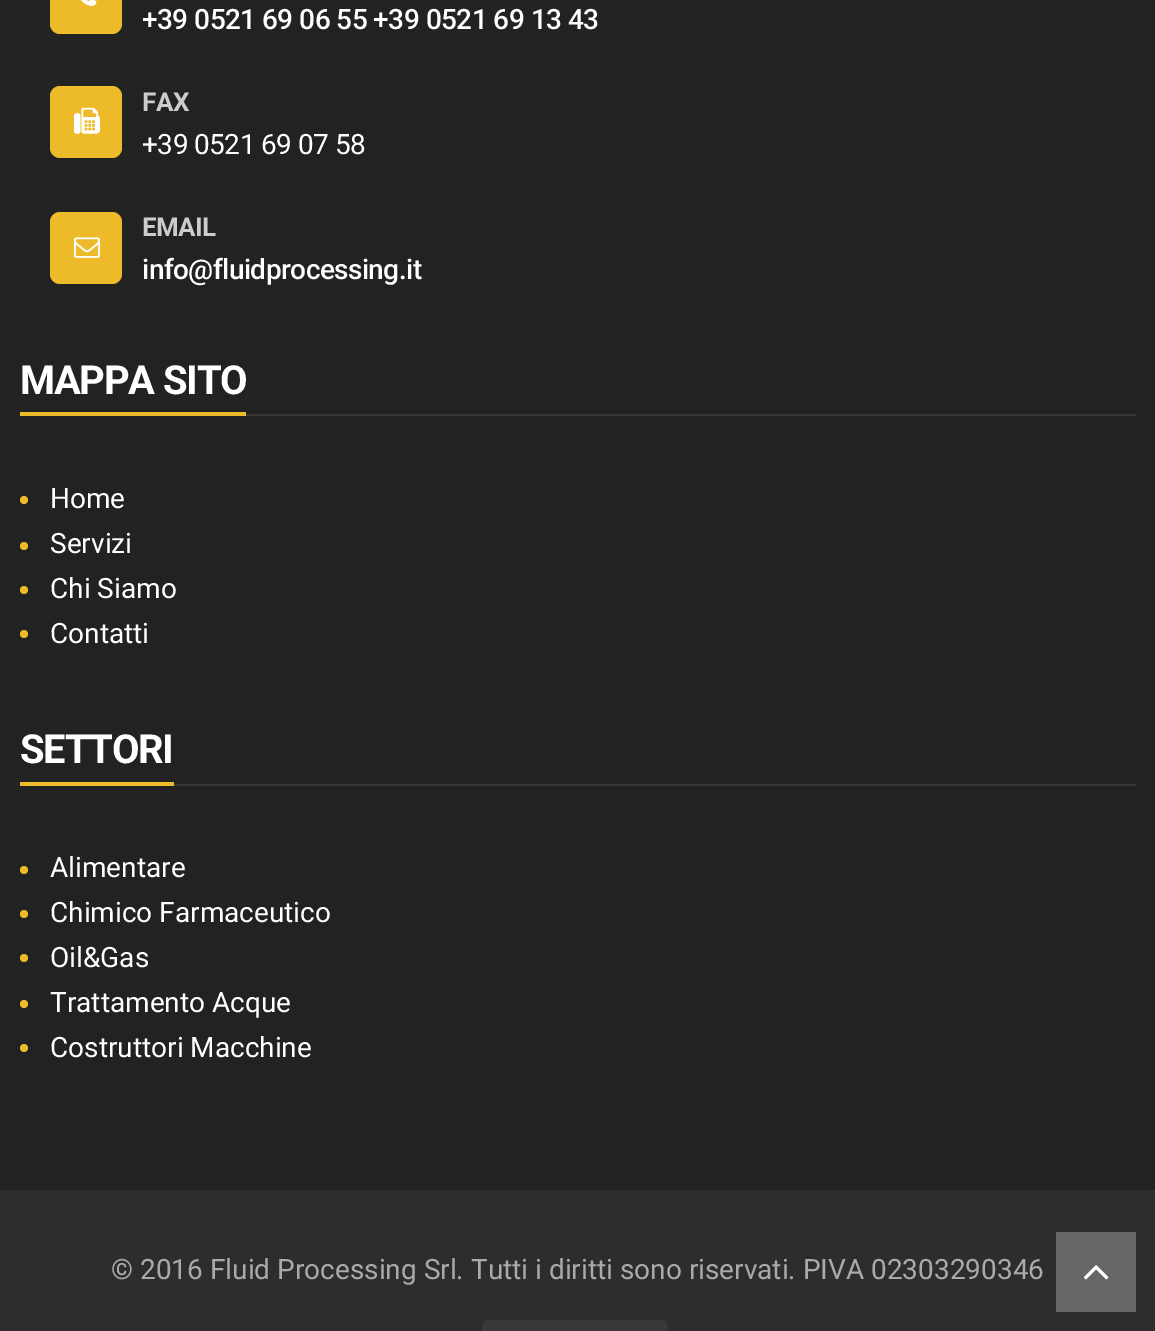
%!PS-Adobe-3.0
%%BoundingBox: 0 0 1155 1331
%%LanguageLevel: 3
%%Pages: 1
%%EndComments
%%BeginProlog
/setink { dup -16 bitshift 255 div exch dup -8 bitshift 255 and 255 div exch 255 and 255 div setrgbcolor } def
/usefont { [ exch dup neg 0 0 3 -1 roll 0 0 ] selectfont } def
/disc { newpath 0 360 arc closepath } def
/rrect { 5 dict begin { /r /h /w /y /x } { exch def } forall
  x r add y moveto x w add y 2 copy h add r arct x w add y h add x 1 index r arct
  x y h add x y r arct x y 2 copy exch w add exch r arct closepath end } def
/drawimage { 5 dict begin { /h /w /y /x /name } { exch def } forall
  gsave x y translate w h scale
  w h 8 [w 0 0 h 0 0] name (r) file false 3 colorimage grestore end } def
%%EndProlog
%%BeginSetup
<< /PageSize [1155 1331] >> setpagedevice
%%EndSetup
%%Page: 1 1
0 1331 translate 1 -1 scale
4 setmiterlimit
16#222222 setink
0 0 1155 1331 rectfill
16#EDBA29 setink
50 -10 72 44 10 rrect fill
(img1.raw) 80 0 17 6 drawimage
/Roboto-Medium 28 usefont
16#FFFFFF setink
142 29 moveto -0.55 0 (+39 0521 69 06 55 +39 0521 69 13 43) ashow
16#EDBA29 setink
50 86 72 72 10 rrect fill
(img2.raw) 74 107 26 27 drawimage
/Roboto-Bold 26 usefont
16#CCCCCC setink
142 111 moveto -0.5 0 (FAX) ashow
/Roboto-Regular 28 usefont
16#FFFFFF setink
142 154 moveto -0.55 0 (+39 0521 69 07 58) ashow
16#EDBA29 setink
50 212 72 72 10 rrect fill
(img3.raw) 74 237 26 21 drawimage
/Roboto-Bold 26 usefont
16#CCCCCC setink
142 236 moveto -0.5 0 (EMAIL) ashow
/Roboto-Medium 28 usefont
16#FFFFFF setink
142 279 moveto -0.55 0 (info@fluidprocessing.it) ashow
16#373737 setink
246 414 890 2 rectfill
/Roboto-Bold 40 usefont
16#FFFFFF setink
20 394 moveto -1.25 0 (MAPPA SITO) ashow
16#EDBA29 setink
20 412 226 4 rectfill
24 500 4 disc fill
/Roboto-Regular 28 usefont
16#FFFFFF setink
50 508 moveto (Home) show
16#EDBA29 setink
24 546 4 disc fill
16#FFFFFF setink
50 553 moveto (Servizi) show
16#EDBA29 setink
24 590 4 disc fill
16#FFFFFF setink
50 598 moveto (Chi Siamo) show
16#EDBA29 setink
24 634 4 disc fill
16#FFFFFF setink
50 643 moveto (Contatti) show
16#373737 setink
174 784 962 2 rectfill
/Roboto-Bold 40 usefont
16#FFFFFF setink
20 763 moveto -1.25 0 (SETTORI) ashow
16#EDBA29 setink
20 782 154 4 rectfill
24 870 4 disc fill
/Roboto-Regular 28 usefont
16#FFFFFF setink
50 877 moveto (Alimentare) show
16#EDBA29 setink
24 914 4 disc fill
16#FFFFFF setink
50 922 moveto (Chimico Farmaceutico) show
16#EDBA29 setink
24 958 4 disc fill
16#FFFFFF setink
50 967 moveto (Oil&Gas) show
16#EDBA29 setink
24 1004 4 disc fill
16#FFFFFF setink
50 1012 moveto (Trattamento Acque) show
16#EDBA29 setink
24 1048 4 disc fill
16#FFFFFF setink
50 1057 moveto (Costruttori Macchine) show
16#2D2D2D setink
0 1190 1155 141 rectfill
16#AAAAAA setink
111 1279 moveto (© 2016 Fluid Processing Srl. Tutti i diritti sono riservati. PIVA 02303290346) show
(img4.raw) 482 1320 186 11 drawimage
16#666666 setink
1056 1232 80 80 rectfill
(img5.raw) 1083 1265 26 15 drawimage
showpage
%%EOF
